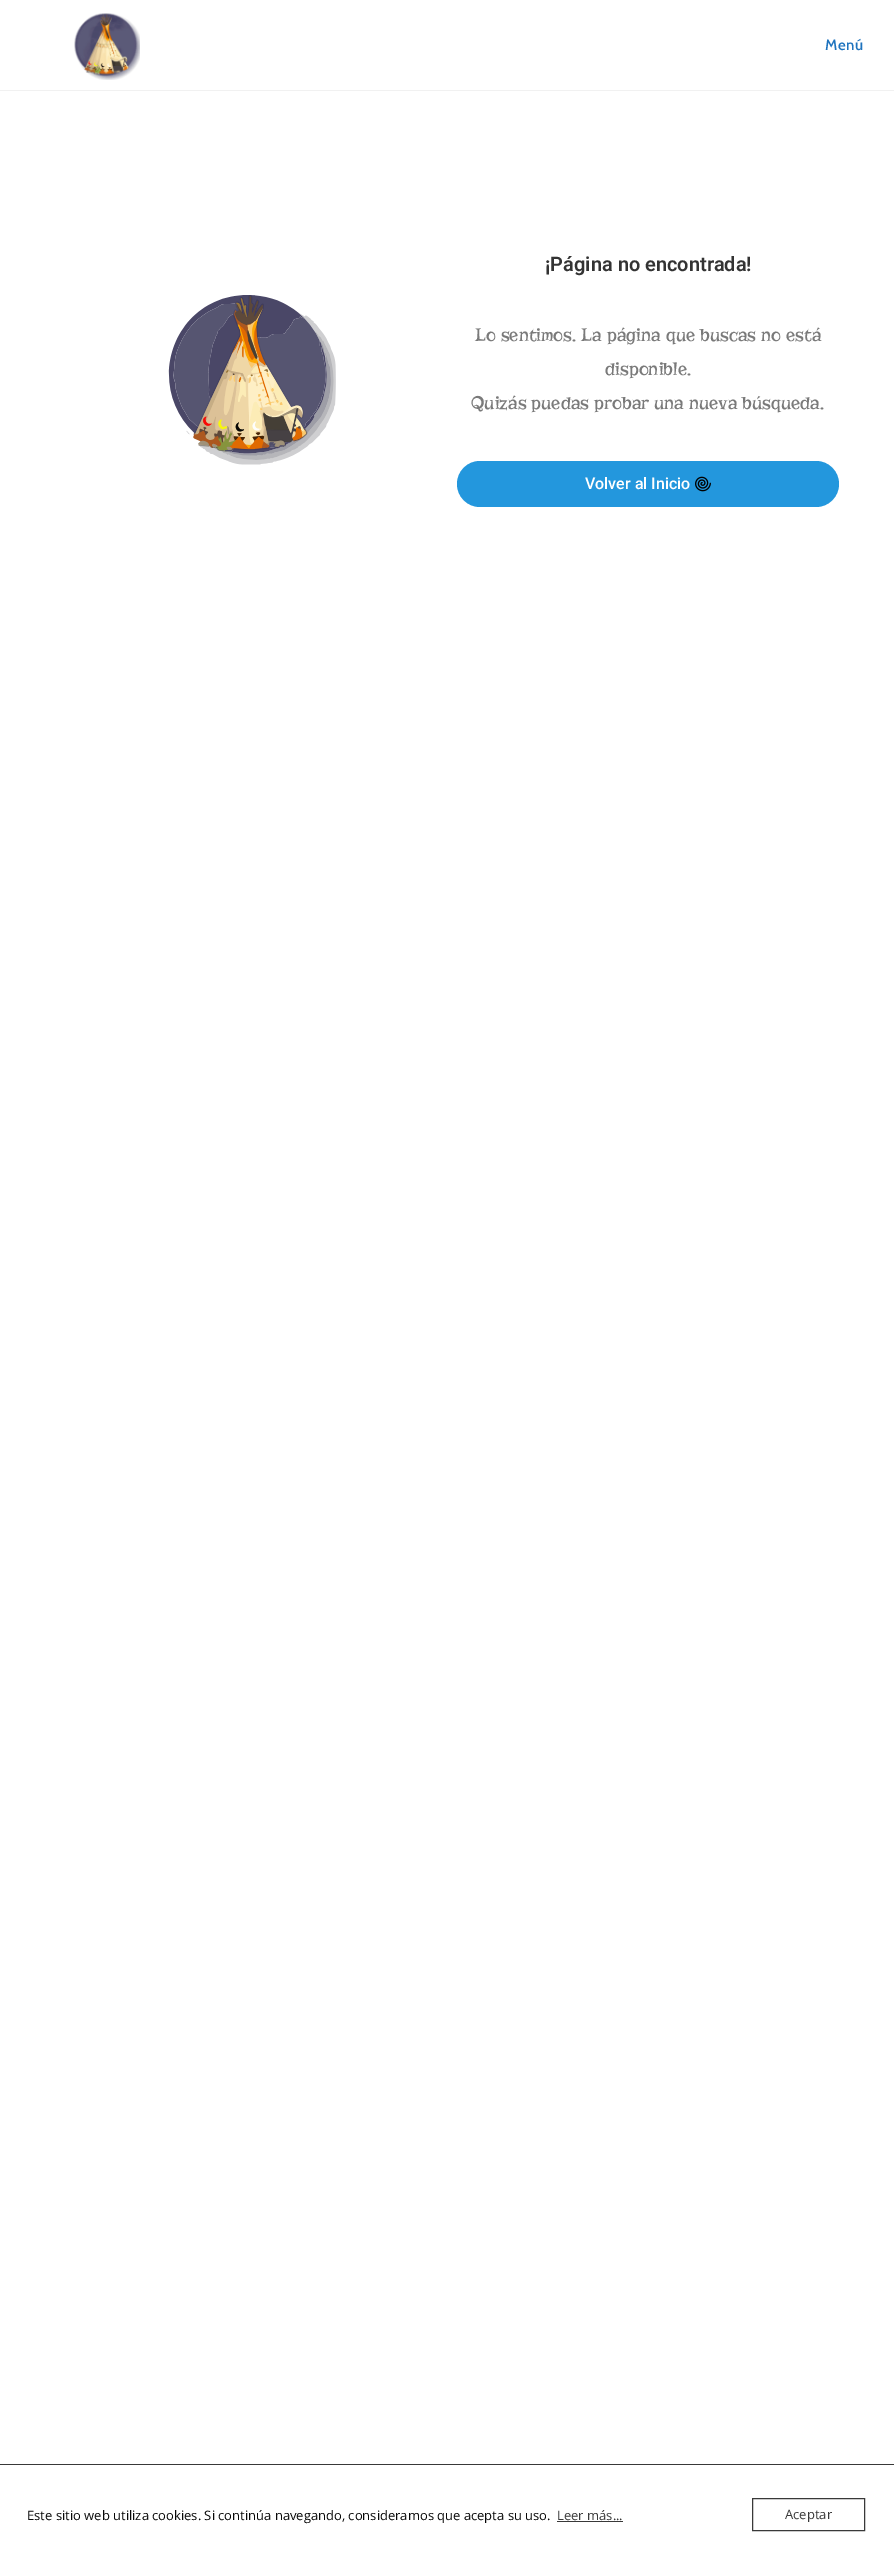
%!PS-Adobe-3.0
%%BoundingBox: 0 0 894 2564
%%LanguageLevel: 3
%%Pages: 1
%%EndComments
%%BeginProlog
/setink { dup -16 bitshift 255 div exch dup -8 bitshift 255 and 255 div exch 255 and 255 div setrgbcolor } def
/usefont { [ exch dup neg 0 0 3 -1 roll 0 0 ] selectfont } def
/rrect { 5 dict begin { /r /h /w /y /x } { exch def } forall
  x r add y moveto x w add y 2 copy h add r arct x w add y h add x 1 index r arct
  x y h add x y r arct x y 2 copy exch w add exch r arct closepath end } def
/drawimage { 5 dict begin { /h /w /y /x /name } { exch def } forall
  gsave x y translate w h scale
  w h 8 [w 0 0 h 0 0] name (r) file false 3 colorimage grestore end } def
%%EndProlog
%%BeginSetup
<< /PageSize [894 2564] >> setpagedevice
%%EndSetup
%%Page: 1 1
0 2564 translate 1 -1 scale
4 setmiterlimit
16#FFFFFF setink
0 0 894 2564 rectfill
16#F1F1F1 setink
0 90 894 1 rectfill
(img1.raw) 74 13 66 67 drawimage
/Cabin-Medium 15 usefont
16#1E73BE setink
825 50 moveto 0.5 0 (Menú) ashow
(img2.raw) 168 295 168 170 drawimage
/Roboto-SemiBold 20 usefont
16#333333 setink
545 271 moveto (¡Página no encontrada!) show
/Risque-Regular 19 usefont
16#7A7A7A setink
[
    [(Lo sentimos. La página que buscas no está) 475 341]
    [(disponible.) 605 375]
    [(Quizás puedas probar una nueva búsqueda.) 471 409]
] { aload pop moveto show } forall
16#2397DD setink
457 461 382 46 23 rrect fill
/Roboto-Medium 16 usefont
16#FFFFFF setink
585 489 moveto (Volver al Inicio) show
(img3.raw) 695 476 16 16 drawimage
16#393939 setink
0 2464 894 1 rectfill
/OpenSans-Regular 13 usefont
16#080808 setink
27 2520 moveto (Este sitio web utiliza cookies. Si continúa navegando, consideramos que acepta su uso.) show
16#393939 setink
557 2520 moveto (Leer más...) show
557 2521 66 1 rectfill
752.5 2498.5 112 32 rectstroke
785 2519 moveto (Aceptar) show
showpage
%%EOF
